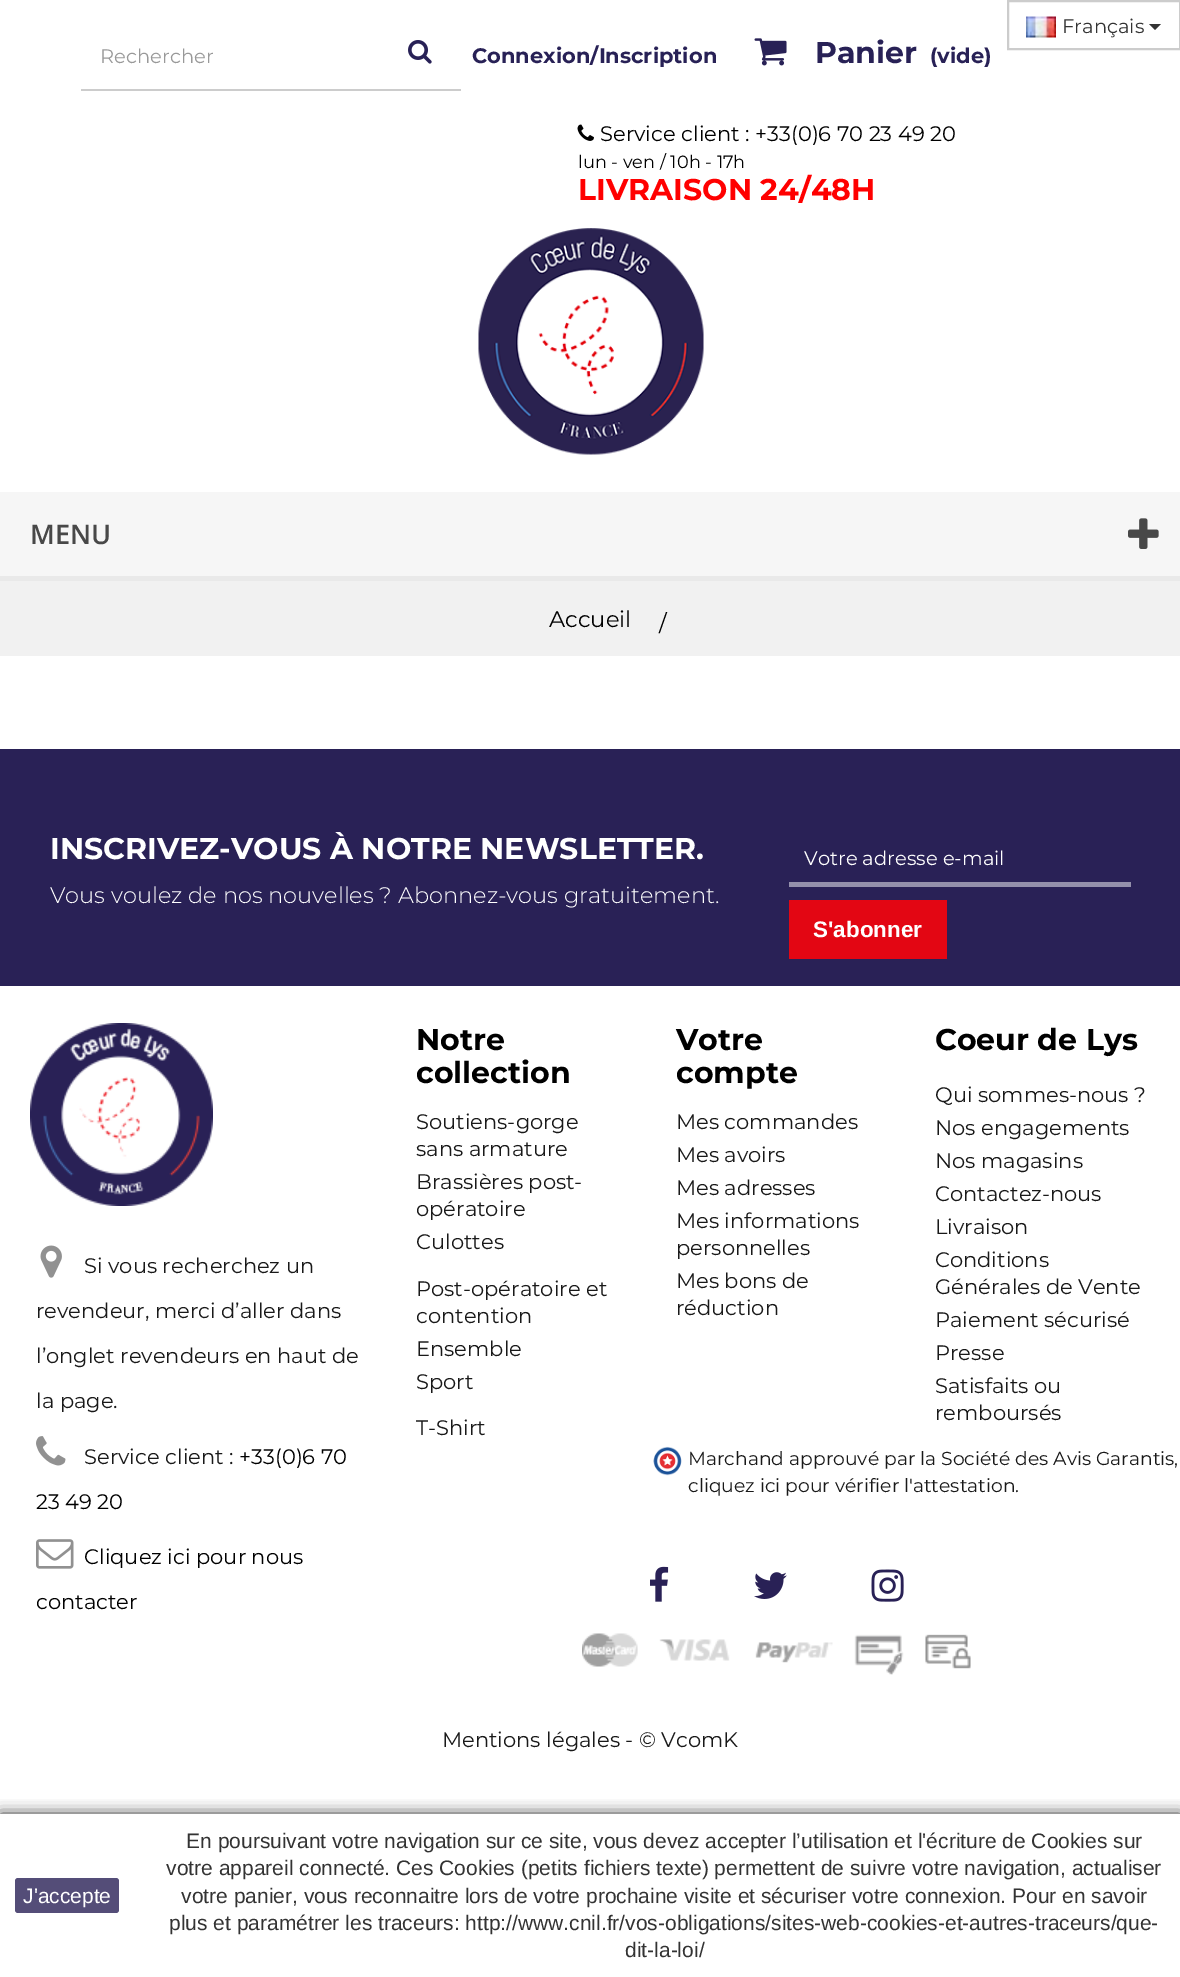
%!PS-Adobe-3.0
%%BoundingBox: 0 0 1180 1977
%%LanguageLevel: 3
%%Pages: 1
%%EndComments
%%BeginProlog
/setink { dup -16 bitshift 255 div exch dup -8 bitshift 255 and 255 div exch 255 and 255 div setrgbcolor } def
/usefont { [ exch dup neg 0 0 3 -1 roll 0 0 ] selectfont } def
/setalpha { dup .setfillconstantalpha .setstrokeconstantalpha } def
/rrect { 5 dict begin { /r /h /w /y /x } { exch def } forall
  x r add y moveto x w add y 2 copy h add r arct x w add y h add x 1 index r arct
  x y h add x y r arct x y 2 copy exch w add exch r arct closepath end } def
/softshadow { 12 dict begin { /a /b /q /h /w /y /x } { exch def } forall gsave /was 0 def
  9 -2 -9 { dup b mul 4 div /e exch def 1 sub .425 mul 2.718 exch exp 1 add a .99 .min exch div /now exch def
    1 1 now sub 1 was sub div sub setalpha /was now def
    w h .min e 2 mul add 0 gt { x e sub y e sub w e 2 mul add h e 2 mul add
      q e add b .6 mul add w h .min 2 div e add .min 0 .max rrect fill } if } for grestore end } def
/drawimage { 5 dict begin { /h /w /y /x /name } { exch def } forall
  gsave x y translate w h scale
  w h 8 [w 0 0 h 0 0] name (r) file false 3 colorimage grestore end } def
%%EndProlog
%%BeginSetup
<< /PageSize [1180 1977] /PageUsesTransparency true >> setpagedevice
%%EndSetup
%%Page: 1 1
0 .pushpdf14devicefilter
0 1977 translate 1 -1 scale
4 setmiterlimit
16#FFFFFF setink
0 0 1180 1977 rectfill
16#CCCCCC setink
2 setlinewidth
1008 1 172 48 rectstroke
(img1.raw) 1026 16 30 22 drawimage
/Montserrat-Regular 19.5 usefont
16#333333 setink
1062 33 moveto (Français) show
1149 24 moveto 1161 24 lineto 1155 30 lineto closepath fill
16#CCCCCC setink
81 89 380 2 rectfill
16#999999 setink
100 63 moveto (Rechercher) show
(img2.raw) 408 40 24 24 drawimage
/Montserrat-Bold 21 usefont
16#282156 setink
472 63 moveto (Connexion/Inscription) show
(img3.raw) 754 38 33 28 drawimage
/Montserrat-Bold 30 usefont
815 63 moveto (Panier) show
/Montserrat-Bold 21 usefont
930 63 moveto (\(vide\)) show
(img4.raw) 577 124 17 17 drawimage
/Montserrat-Regular 21 usefont
16#000000 setink
600 141 moveto (Service client : +33\(0\)6 70 23 49 20) show
/Montserrat-Regular 17.75 usefont
578 168 moveto (lun - ven / 10h - 17h) show
/Montserrat-Bold 30 usefont
16#FF0000 setink
578 200 moveto (LIVRAISON 24/48H) show
(img5.raw) 478 228 226 227 drawimage
16#F6F6F6 setink
0 492 1180 84 rectfill
16#E9E9E9 setink
0 576 1180 5 rectfill
/OpenSans-SemiBold 27 usefont
16#484848 setink
30 544 moveto (MENU) show
(img6.raw) 1128 518 31 31 drawimage
16#F1F1F1 setink
0 581 1180 75 rectfill
/Montserrat-Regular 22.5 usefont
16#000000 setink
549 627 moveto (Accueil) show
659 631 moveto (/) show
16#292156 setink
0 749 1180 237 rectfill
/Montserrat-Bold 30 usefont
16#FFFFFF setink
50 859 moveto (INSCRIVEZ-VOUS À NOTRE NEWSLETTER.) show
/Montserrat-Light 22.5 usefont
50 903 moveto (Vous voulez de nos nouvelles ? Abonnez-vous gratuitement.) show
16#9490AB setink
789 882 342 5 rectfill
/Montserrat-Regular 19.5 usefont
16#FFFFFF setink
804 865 moveto (Votre adresse e-mail) show
16#E30613 setink
789 900 158 59 rectfill
/LiberationSans-Bold 22.5 usefont
16#FFFFFF setink
813 937 moveto (S'abonner) show
/Montserrat-Bold 30 usefont
16#000000 setink
416 1050 moveto (Notre) show
416 1083 moveto (collection) show
/Montserrat-Regular 21 usefont
16#191919 setink
[
    [(Soutiens-gorge) 416 1129]
    [(sans armature) 416 1156]
    [(Brassières post-) 416 1189]
    [(opératoire) 416 1216]
    [(Culottes) 416 1249]
    [(Post-opératoire et) 416 1296]
    [(contention) 416 1323]
    [(Ensemble) 416 1356]
    [(Sport) 416 1389]
    [(T-Shirt) 416 1435]
] { aload pop moveto show } forall
/Montserrat-Bold 30 usefont
16#000000 setink
676 1050 moveto (Votre) show
676 1083 moveto (compte) show
/Montserrat-Regular 21 usefont
16#191919 setink
[
    [(Mes commandes) 676 1129]
    [(Mes avoirs) 676 1162]
    [(Mes adresses) 676 1195]
    [(Mes informations) 676 1228]
    [(personnelles) 676 1255]
    [(Mes bons de) 676 1288]
    [(réduction) 676 1315]
] { aload pop moveto show } forall
/Montserrat-Bold 30 usefont
16#000000 setink
935 1050 moveto (Coeur de Lys) show
/Montserrat-Regular 21 usefont
16#191919 setink
[
    [(Qui sommes-nous ?) 935 1102]
    [(Nos engagements) 935 1135]
    [(Nos magasins) 935 1168]
    [(Contactez-nous) 935 1201]
    [(Livraison) 935 1234]
    [(Conditions) 935 1267]
    [(Générales de Vente) 935 1294]
    [(Paiement sécurisé) 935 1327]
    [(Presse) 935 1360]
    [(Satisfaits ou) 935 1393]
    [(remboursés) 935 1420]
] { aload pop moveto show } forall
(img7.raw) 30 1023 183 183 drawimage
(img8.raw) 40 1245 22 33 drawimage
[
    [(Si vous recherchez un) 84 1273]
    [(revendeur, merci d’aller dans) 36 1318]
    [(l’onglet revendeurs en haut de) 36 1363]
    [(la page.) 36 1408]
] { aload pop moveto show } forall
(img9.raw) 36 1436 30 30 drawimage
84 1464 moveto (Service client :) show
16#000000 setink
239 1464 moveto (+33\(0\)6 70) show
36 1509 moveto (23 49 20) show
(img10.raw) 36 1539 38 30 drawimage
84 1564 moveto (Cliquez ici pour nous) show
36 1609 moveto (contacter) show
(img11.raw) 653 1446 29 30 drawimage
/Montserrat-Regular 18.75 usefont
16#191919 setink
688 1465 moveto (Marchand approuvé par la Société des Avis Garantis,) show
688 1492 moveto (cliquez ici pour vérifier l'attestation.) show
(img12.raw) 650 1566 19 36 drawimage
(img13.raw) 754 1572 33 27 drawimage
(img14.raw) 871 1569 33 33 drawimage
(img15.raw) 582 1633 389 42 drawimage
/Montserrat-Regular 21 usefont
442 1747 moveto (Mentions légales - © VcomK) show
gsave
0 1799 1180 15 rectclip
16#333333 setink
0 1814 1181 163 0 7.5 1 softshadow
grestore
16#544D78 setink
15 1878 104 35 3 rrect fill
/LiberationSans-Regular 21 usefont
16#FFFFFF setink
23 1903 moveto (J'accepte) show
16#333333 setink
[
    [(En poursuivant votre navigation sur ce site, vous devez accepter l’utilisation et l'écriture de Cookies sur) 186 1848]
    [(votre appareil connecté. Ces Cookies \(petits fichiers texte\) permettent de suivre votre navigation, actualiser) 166 1875]
    [(votre panier, vous reconnaitre lors de votre prochaine visite et sécuriser votre connexion. Pour en savoir) 181 1903]
    [(plus et paramétrer les traceurs: http://www.cnil.fr/vos-obligations/sites-web-cookies-et-autres-traceurs/que-) 169 1930]
    [(dit-la-loi/) 625 1957]
] { aload pop moveto show } forall
.poppdf14devicefilter showpage
%%EOF
